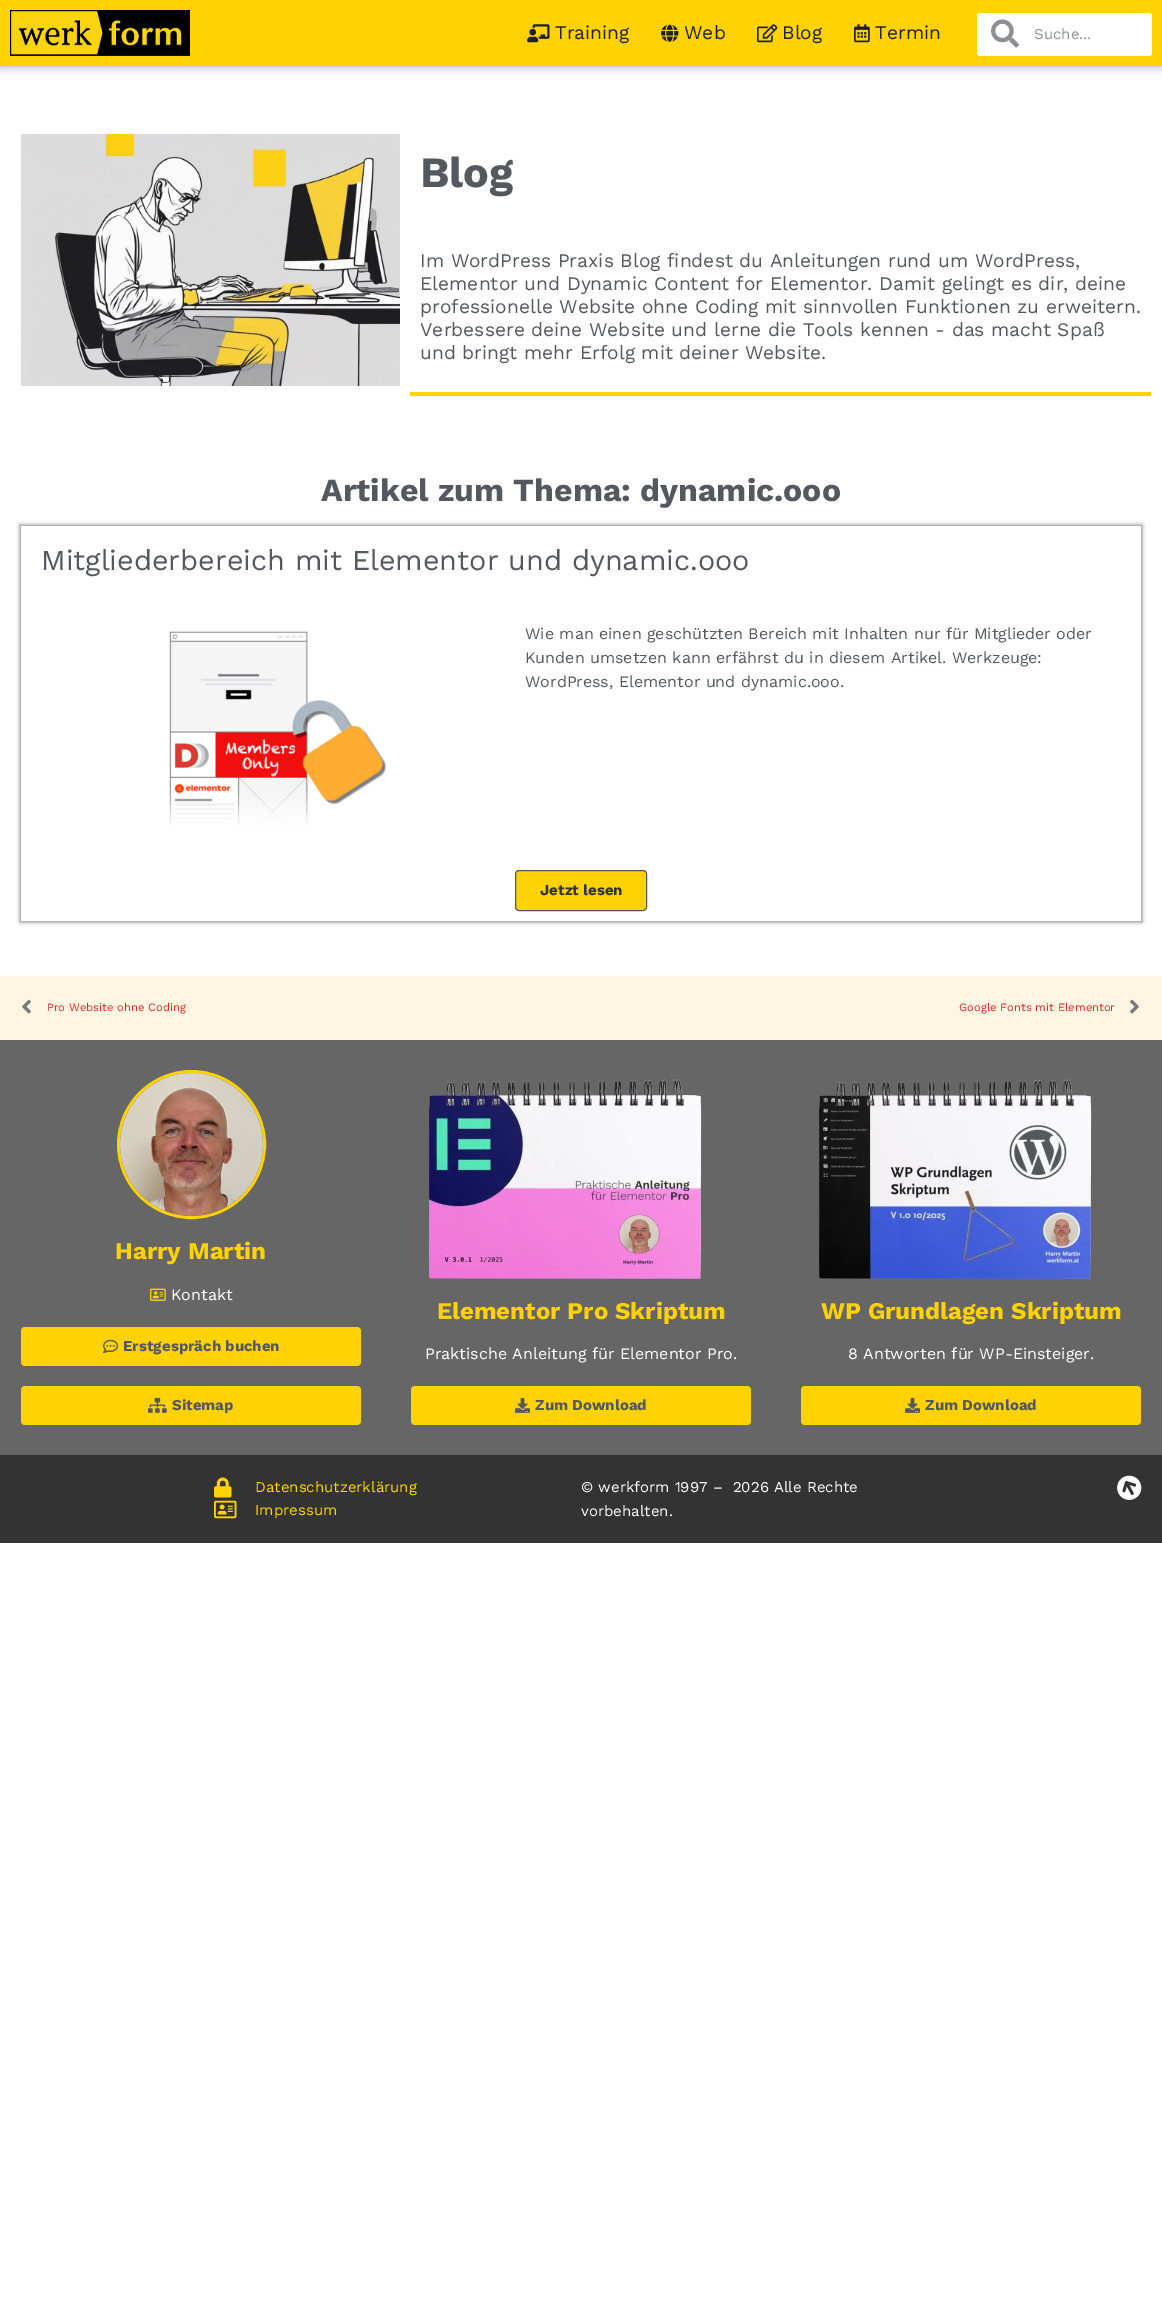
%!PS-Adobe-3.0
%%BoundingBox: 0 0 1162 2311
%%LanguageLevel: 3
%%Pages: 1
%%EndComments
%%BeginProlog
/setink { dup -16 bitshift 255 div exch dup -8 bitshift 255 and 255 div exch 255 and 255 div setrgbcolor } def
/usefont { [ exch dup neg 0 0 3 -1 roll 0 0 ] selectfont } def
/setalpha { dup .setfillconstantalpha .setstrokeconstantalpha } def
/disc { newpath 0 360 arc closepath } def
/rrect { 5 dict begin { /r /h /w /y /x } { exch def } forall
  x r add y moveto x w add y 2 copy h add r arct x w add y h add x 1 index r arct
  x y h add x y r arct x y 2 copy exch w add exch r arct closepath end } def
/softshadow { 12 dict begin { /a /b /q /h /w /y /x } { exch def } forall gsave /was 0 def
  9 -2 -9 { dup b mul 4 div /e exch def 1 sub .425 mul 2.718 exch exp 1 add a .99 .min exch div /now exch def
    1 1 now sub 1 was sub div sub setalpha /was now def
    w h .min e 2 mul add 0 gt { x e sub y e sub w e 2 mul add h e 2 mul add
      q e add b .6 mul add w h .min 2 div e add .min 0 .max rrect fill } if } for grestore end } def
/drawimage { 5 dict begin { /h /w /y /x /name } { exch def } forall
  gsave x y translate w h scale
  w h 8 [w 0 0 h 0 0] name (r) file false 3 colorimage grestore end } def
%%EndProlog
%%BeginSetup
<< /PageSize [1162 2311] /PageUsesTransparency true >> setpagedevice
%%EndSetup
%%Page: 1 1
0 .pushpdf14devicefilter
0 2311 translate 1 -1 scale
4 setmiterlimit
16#FFFFFF setink
0 0 1162 2311 rectfill
16#000000 setink
0 0 1162 66 0 5 0.37 softshadow
16#FFD203 setink
0 0 1162 66 rectfill
(img1.raw) 10 10 180 46 drawimage
(img2.raw) 527 24 23 19 drawimage
/WorkSans-Regular 19.2 usefont
16#1F2124 setink
555 39 moveto (Training) show
(img3.raw) 661 24 18 18 drawimage
684 39 moveto (Web) show
(img4.raw) 757 24 21 19 drawimage
782 39 moveto (Blog) show
(img5.raw) 854 24 16 19 drawimage
875 39 moveto (Termin) show
16#FFFFFF setink
977 13 175 43 3 rrect fill
(img6.raw) 991 19 28 29 drawimage
/WorkSans-Regular 15 usefont
16#8C8F93 setink
1034 39 moveto (Suche...) show
(img7.raw) 21 134 379 252 drawimage
16#FFD203 setink
410 392 741 4 rectfill
/WorkSans-Bold 43 usefont
16#54595F setink
420 187 moveto (Blog) show
/WorkSans-Regular 19.2 usefont
[
    [(Im WordPress Praxis Blog findest du Anleitungen rund um WordPress,) 420 267]
    [(Elementor und Dynamic Content for Elementor. Damit gelingt es dir, deine) 420 290]
    [(professionelle Website ohne Coding mit sinnvollen Funktionen zu erweitern.) 420 313]
    [(Verbessere deine Website und lerne die Tools kennen - das macht Spaß) 420 336]
    [(und bringt mehr Erfolg mit deiner Website.) 420 359]
] { aload pop moveto show } forall
/WorkSans-Bold 32 usefont
321 501 moveto (Artikel zum Thema: dynamic.ooo) show
gsave
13 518 moveto 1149 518 lineto 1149 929 lineto 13 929 lineto closepath 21 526 moveto 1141 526 lineto 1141 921 lineto 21 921 lineto closepath eoclip newpath
16#000000 setink
20 525 1122 397 0 2 0.5 softshadow
grestore
/WorkSans-Regular 28.8 usefont
41 570 moveto (Mitgliederbereich mit Elementor und dynamic.ooo) show
(img8.raw) 169 631 218 195 drawimage
/WorkSans-Regular 16 usefont
[
    [(Wie man einen geschützten Bereich mit Inhalten nur für Mitglieder oder) 525 639]
    [(Kunden umsetzen kann erfährst du in diesem Artikel. Werkzeuge:) 525 663]
    [(WordPress, Elementor und dynamic.ooo.) 525 687]
] { aload pop moveto show } forall
16#FFD203 setink
515.5 870.5 131 40 3.5 rrect gsave fill grestore
16#54595F setink
stroke
/WorkSans-Bold 15 usefont
16#333333 setink
540 895 moveto (Jetzt lesen) show
16#FFF5E2 setink
0 976 1162 64 rectfill
(img9.raw) 22 999 9 15 drawimage
/WorkSans-Regular 11.25 usefont
16#D32A2A setink
47 1011 moveto (Pro Website ohne Coding) show
959 1011 moveto (Google Fonts mit Elementor) show
(img10.raw) 1130 999 9 15 drawimage
16#666666 setink
0 1040 1162 415 rectfill
16#FFD203 setink
3 setlinewidth
191.5 1144.5 73 disc stroke
(img11.raw) 120 1073 143 143 drawimage
/WorkSans-Bold 24 usefont
115 1259 moveto (Harry Martin) show
(img12.raw) 150 1288 16 13 drawimage
/WorkSans-Regular 16 usefont
16#FFFFFF setink
171 1300 moveto (Kontakt) show
16#FFD203 setink
21 1327 340 39 4 rrect fill
(img13.raw) 103 1339 15 14 drawimage
/WorkSans-Bold 15 usefont
16#54595F setink
123 1351 moveto (Erstgespräch buchen) show
16#FFD203 setink
21 1386 340 39 4 rrect fill
(img14.raw) 148 1397 19 16 drawimage
16#54595F setink
172 1410 moveto (Sitemap) show
(img15.raw) 428 1079 274 200 drawimage
/WorkSans-Bold 24 usefont
16#FFD203 setink
437 1319 moveto (Elementor Pro Skriptum) show
/WorkSans-Regular 16 usefont
16#FFFFFF setink
425 1359 moveto (Praktische Anleitung für Elementor Pro.) show
16#FFD203 setink
411 1386 340 39 4 rrect fill
(img16.raw) 515 1397 15 16 drawimage
/WorkSans-Bold 15 usefont
16#54595F setink
535 1410 moveto (Zum Download) show
(img17.raw) 819 1079 273 200 drawimage
/WorkSans-Bold 24 usefont
16#FFD203 setink
821 1319 moveto (WP Grundlagen Skriptum) show
/WorkSans-Regular 16 usefont
16#FFFFFF setink
848 1359 moveto (8 Antworten für WP-Einsteiger.) show
16#FFD203 setink
801 1386 340 39 4 rrect fill
(img16.raw) 905 1397 15 16 drawimage
/WorkSans-Bold 15 usefont
16#54595F setink
925 1410 moveto (Zum Download) show
16#333333 setink
0 1455 1162 88 rectfill
(img18.raw) 214 1477 18 21 drawimage
/WorkSans-Regular 15 usefont
16#FFD203 setink
255 1492 moveto (Datenschutzerklärung) show
(img19.raw) 214 1500 23 19 drawimage
255 1515 moveto (Impressum) show
16#FFFFFF setink
581 1492 moveto (© werkform 1997 –  2026 Alle Rechte) show
581 1516 moveto (vorbehalten.) show
(img20.raw) 1117 1475 25 25 drawimage
.poppdf14devicefilter showpage
%%EOF
